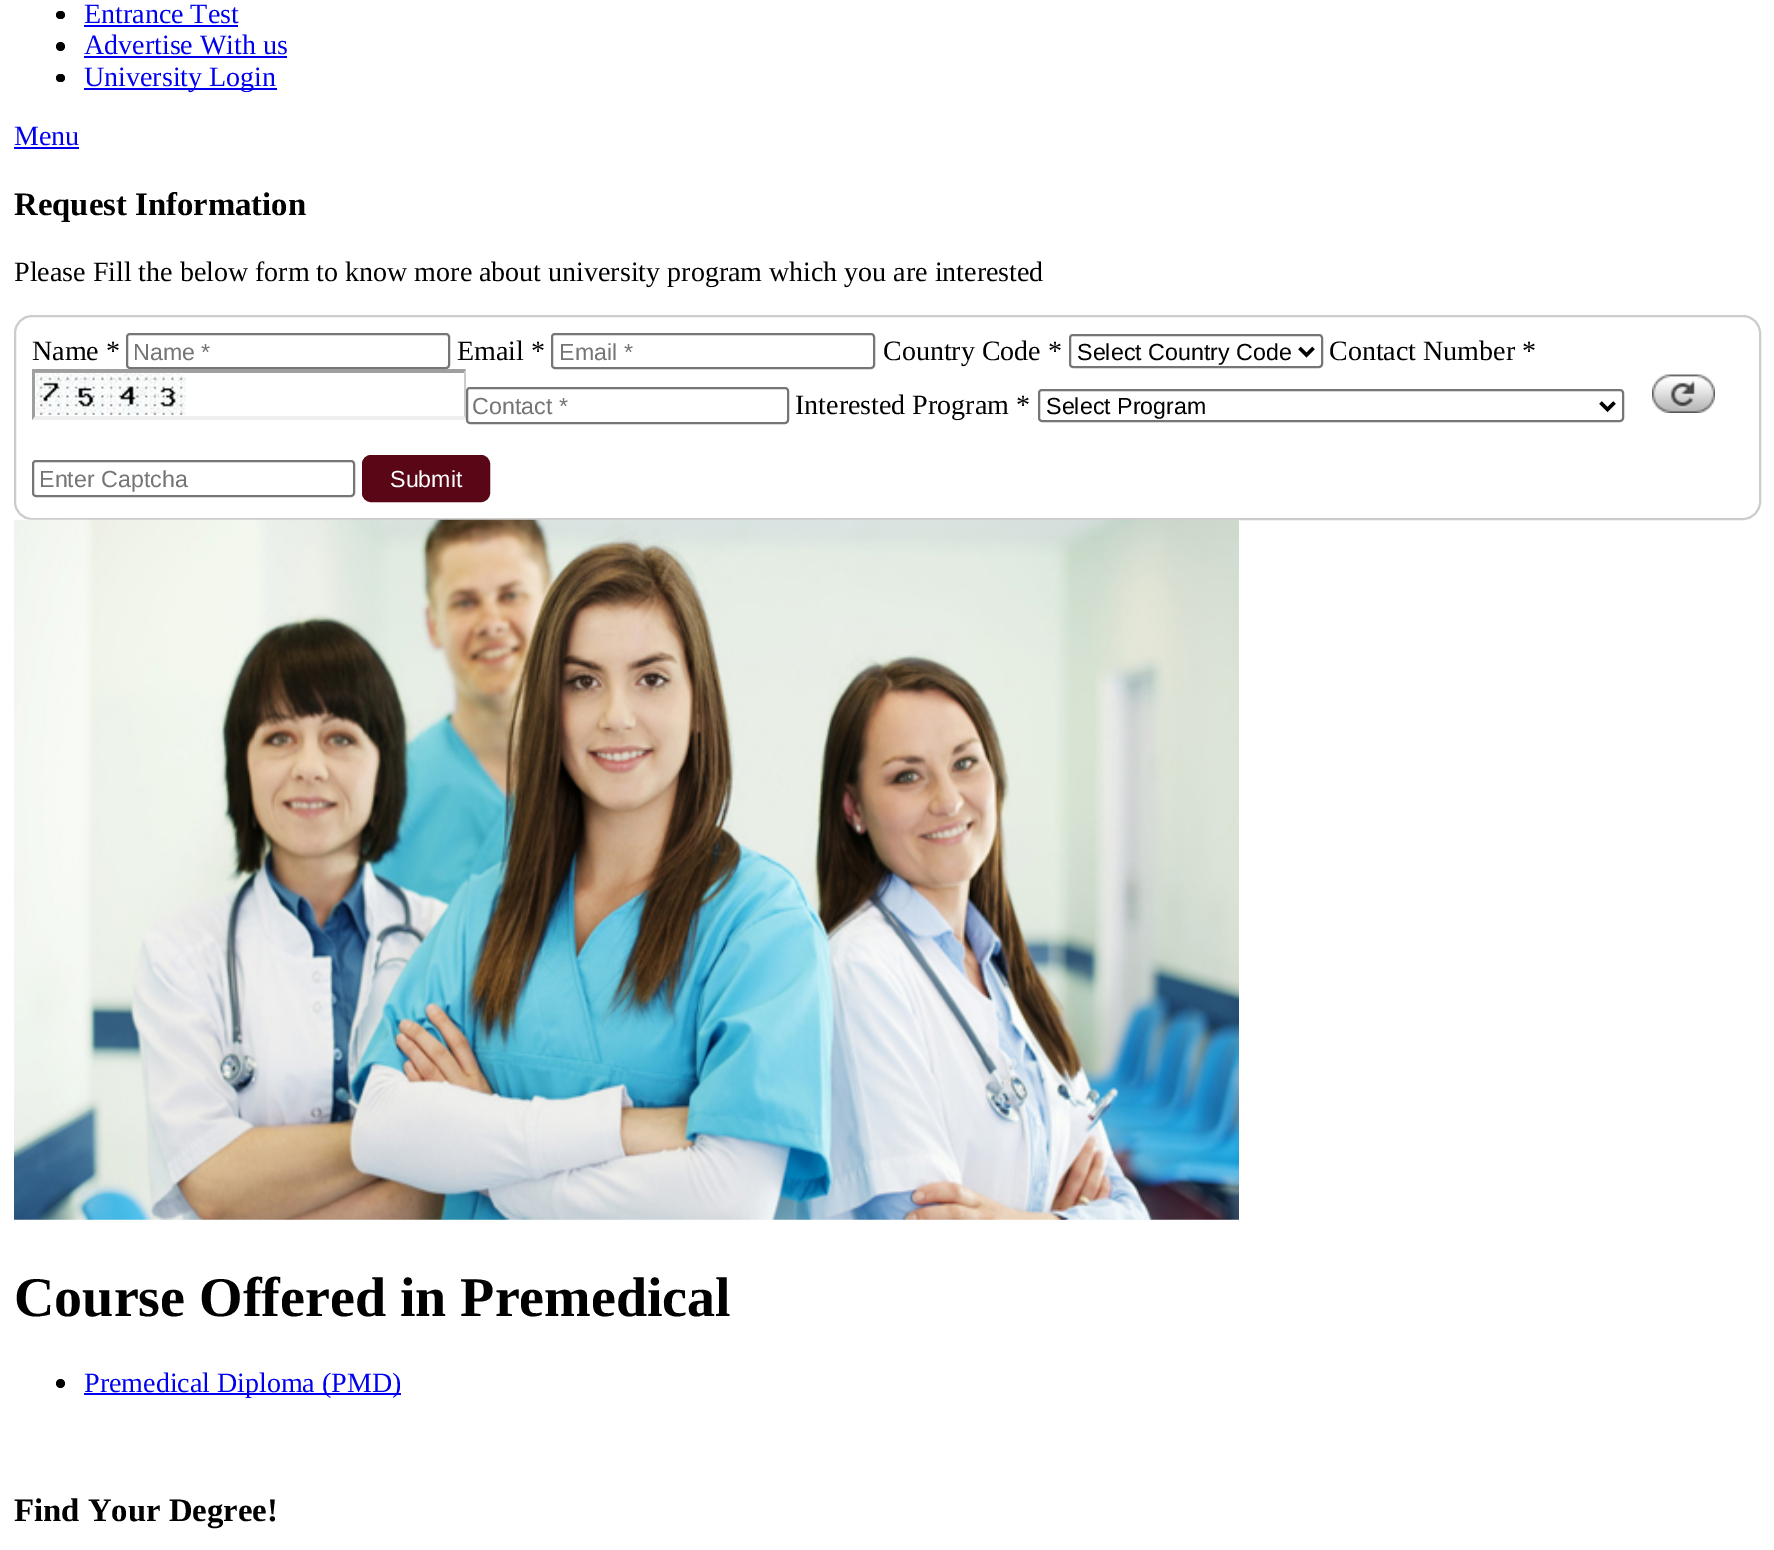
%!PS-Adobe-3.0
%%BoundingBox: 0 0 1774 1550
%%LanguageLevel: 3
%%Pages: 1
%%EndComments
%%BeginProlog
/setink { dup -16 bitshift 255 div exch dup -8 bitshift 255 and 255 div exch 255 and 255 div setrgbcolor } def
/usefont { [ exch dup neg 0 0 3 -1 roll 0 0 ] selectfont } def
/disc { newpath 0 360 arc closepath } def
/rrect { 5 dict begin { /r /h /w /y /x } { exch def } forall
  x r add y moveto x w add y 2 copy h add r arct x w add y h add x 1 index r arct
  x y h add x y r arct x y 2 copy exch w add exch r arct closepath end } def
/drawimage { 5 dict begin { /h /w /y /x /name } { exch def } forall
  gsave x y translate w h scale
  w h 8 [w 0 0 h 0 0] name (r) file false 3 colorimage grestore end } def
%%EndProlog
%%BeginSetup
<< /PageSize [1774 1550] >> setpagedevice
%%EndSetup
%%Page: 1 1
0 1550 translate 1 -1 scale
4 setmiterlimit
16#FFFFFF setink
0 0 1774 1550 rectfill
16#000000 setink
56 11 9 8 4 rrect fill
/LiberationSerif-Regular 28 usefont
16#0000EE setink
84 23 moveto (Entrance Test) show
84 25 154 2 rectfill
16#000000 setink
60.5 46.5 4.5 disc fill
16#0000EE setink
84 54 moveto (Advertise With us) show
84 56 203 2 rectfill
16#000000 setink
56 74 9 8 4 rrect fill
16#0000EE setink
84 88 193 2 rectfill
84 86 moveto (University Login) show
14 145 moveto (Menu) show
14 147 65 2 rectfill
/LiberationSerif-Bold 32.75 usefont
16#000000 setink
14 215 moveto (Request Information) show
/LiberationSerif-Regular 28 usefont
14 281 moveto (Please Fill the below form to know more about university program which you are interested) show
16#CCCCCC setink
2 setlinewidth
15 316 1745 203 17 rrect stroke
16#000000 setink
32 360 moveto (Name *) show
16#767676 setink
127 334 322 34 3 rrect stroke
/LiberationSans-Regular 23.25 usefont
16#757575 setink
133 360 moveto (Name *) show
/LiberationSerif-Regular 28 usefont
16#000000 setink
457 360 moveto (Email *) show
16#767676 setink
552 334 322 34 3 rrect stroke
/LiberationSans-Regular 23.25 usefont
16#757575 setink
559 360 moveto (Email *) show
/LiberationSerif-Regular 28 usefont
16#000000 setink
883 360 moveto (Country Code *) show
16#767676 setink
1070 335 252 32 3 rrect stroke
16#000000 setink
3.5 setlinewidth
1299.5 348 moveto 1306.5 355 lineto 1313.5 348 lineto stroke
/LiberationSans-Regular 23.25 usefont
1077 360 moveto (Select Country Code) show
/LiberationSerif-Regular 28 usefont
1329 360 moveto (Contact Number *) show
16#9F9F9F setink
32 369 moveto 466 369 lineto 464 373 lineto 35 373 lineto closepath fill
16#CCCCCC setink
466 369 moveto 466 420 lineto 464 416 lineto 464 373 lineto closepath fill
16#EEEEEE setink
466 420 moveto 32 420 lineto 35 416 lineto 464 416 lineto closepath fill
16#9F9F9F setink
32 420 moveto 32 369 lineto 35 373 lineto 35 416 lineto closepath fill
(img1.raw) 35 372 151 43 drawimage
16#767676 setink
2 setlinewidth
467 388 321 35 3 rrect stroke
gsave
473 392 309 26 rectclip
/LiberationSans-Regular 23.25 usefont
16#757575 setink
472 414 moveto (Contact *) show
grestore
16#000000 setink
795 414 moveto (Interested Program *) show
16#767676 setink
1039 390 584 31 3 rrect stroke
16#000000 setink
3.5 setlinewidth
1600.5 402.5 moveto 1607.5 409.5 lineto 1614.5 402.5 lineto stroke
/LiberationSans-Regular 23.25 usefont
1046 414 moveto (Select Program) show
(img2.raw) 1652 374 63 39 drawimage
16#767676 setink
2 setlinewidth
33 461 321 35 3 rrect stroke
16#757575 setink
39 487 moveto (Enter Captcha) show
16#590716 setink
363 456 126 45 8 rrect gsave fill grestore
stroke
16#FFFFFF setink
390 487 moveto (Submit) show
(img3.raw) 14 519 1225 701 drawimage
/LiberationSerif-Bold 56 usefont
16#000000 setink
14 1316 moveto (Course Offered in Premedical) show
60.5 1383.5 4.5 disc fill
16#0000EE setink
84 1393 317 2 rectfill
/LiberationSerif-Regular 28 usefont
84 1392 moveto (Premedical Diploma \(PMD\)) show
/LiberationSerif-Bold 32.75 usefont
16#000000 setink
14 1521 moveto (Find Your Degree!) show
showpage
%%EOF
